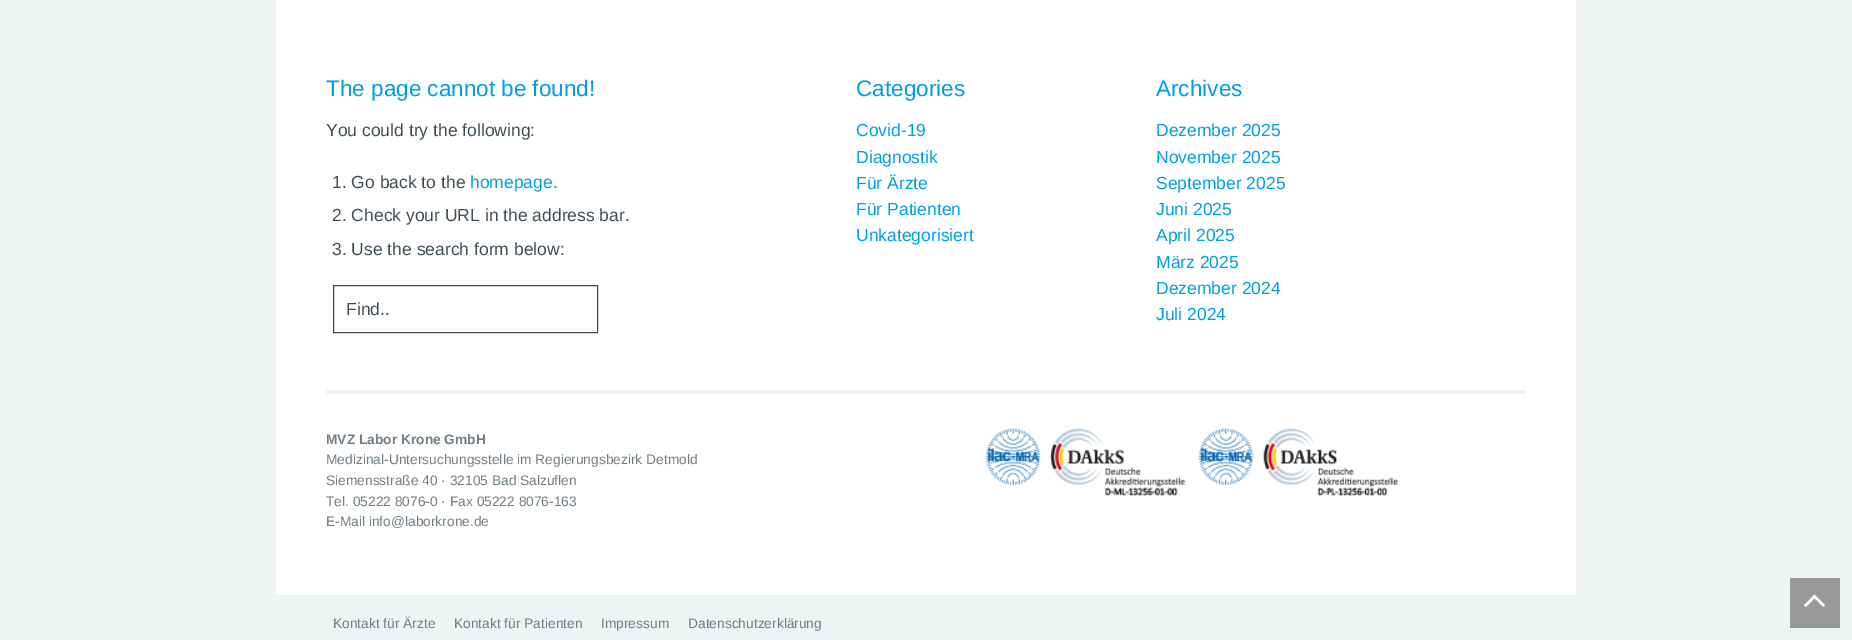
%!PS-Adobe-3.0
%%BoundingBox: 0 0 1852 640
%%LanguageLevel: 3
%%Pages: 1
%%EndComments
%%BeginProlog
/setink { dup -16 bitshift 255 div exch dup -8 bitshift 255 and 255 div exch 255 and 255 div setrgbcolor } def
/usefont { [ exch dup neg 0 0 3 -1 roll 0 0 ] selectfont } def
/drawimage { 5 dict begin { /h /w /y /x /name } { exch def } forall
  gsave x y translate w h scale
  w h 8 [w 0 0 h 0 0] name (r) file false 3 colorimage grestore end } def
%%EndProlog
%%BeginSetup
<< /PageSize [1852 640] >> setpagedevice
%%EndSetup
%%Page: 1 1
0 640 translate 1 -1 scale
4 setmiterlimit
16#F0F3F4 setink
0 0 1852 640 rectfill
16#FFFFFF setink
276 0 1300 595 rectfill
16#F0F3F4 setink
326 390 1200 4 rectfill
/LiberationSans-Regular 22.5 usefont
16#009FE3 setink
326 96 moveto (The page cannot be found!) show
/LiberationSans-Regular 17.5 usefont
16#3F4E55 setink
326 136 moveto (You could try the following:) show
332 188 moveto (1. Go back to the) show
16#009FE3 setink
470 188 moveto (homepage.) show
16#3F4E55 setink
332 221 moveto (2. Check your URL in the address bar.) show
332 255 moveto (3. Use the search form below:) show
333.5 285.5 264 47 rectstroke
346 315 moveto (Find..) show
/LiberationSans-Regular 22.5 usefont
16#009FE3 setink
856 96 moveto (Categories) show
/LiberationSans-Regular 17.5 usefont
[
    [(Covid-19) 856 136]
    [(Diagnostik) 856 163]
    [(Für Ärzte) 856 189]
    [(Für Patienten) 856 215]
    [(Unkategorisiert) 856 241]
] { aload pop moveto show } forall
/LiberationSans-Regular 22.5 usefont
1156 96 moveto (Archives) show
/LiberationSans-Regular 17.5 usefont
[
    [(Dezember 2025) 1156 136]
    [(November 2025) 1156 163]
    [(September 2025) 1156 189]
    [(Juni 2025) 1156 215]
    [(April 2025) 1156 241]
    [(März 2025) 1156 268]
    [(Dezember 2024) 1156 294]
    [(Juli 2024) 1156 320]
] { aload pop moveto show } forall
/LiberationSans-Bold 13.75 usefont
16#717E86 setink
326 444 moveto (MVZ Labor Krone GmbH) show
/LiberationSans-Regular 13.75 usefont
[
    [(Medizinal-Untersuchungsstelle im Regierungsbezirk Detmold) 326 464]
    [(Siemensstraße 40 · 32105 Bad Salzuflen) 326 485]
    [(Tel. 05222 8076-0 · Fax 05222 8076-163) 326 506]
    [(E-Mail info@laborkrone.de) 326 526]
] { aload pop moveto show } forall
(img1.raw) 985 428 413 68 drawimage
[
    [(Kontakt für Ärzte) 333 628]
    [(Kontakt für Patienten) 454 628]
    [(Impressum) 601 628]
    [(Datenschutzerklärung) 688 628]
] { aload pop moveto show } forall
16#999999 setink
1790 578 50 50 rectfill
(img2.raw) 1804 594 21 13 drawimage
showpage
%%EOF
